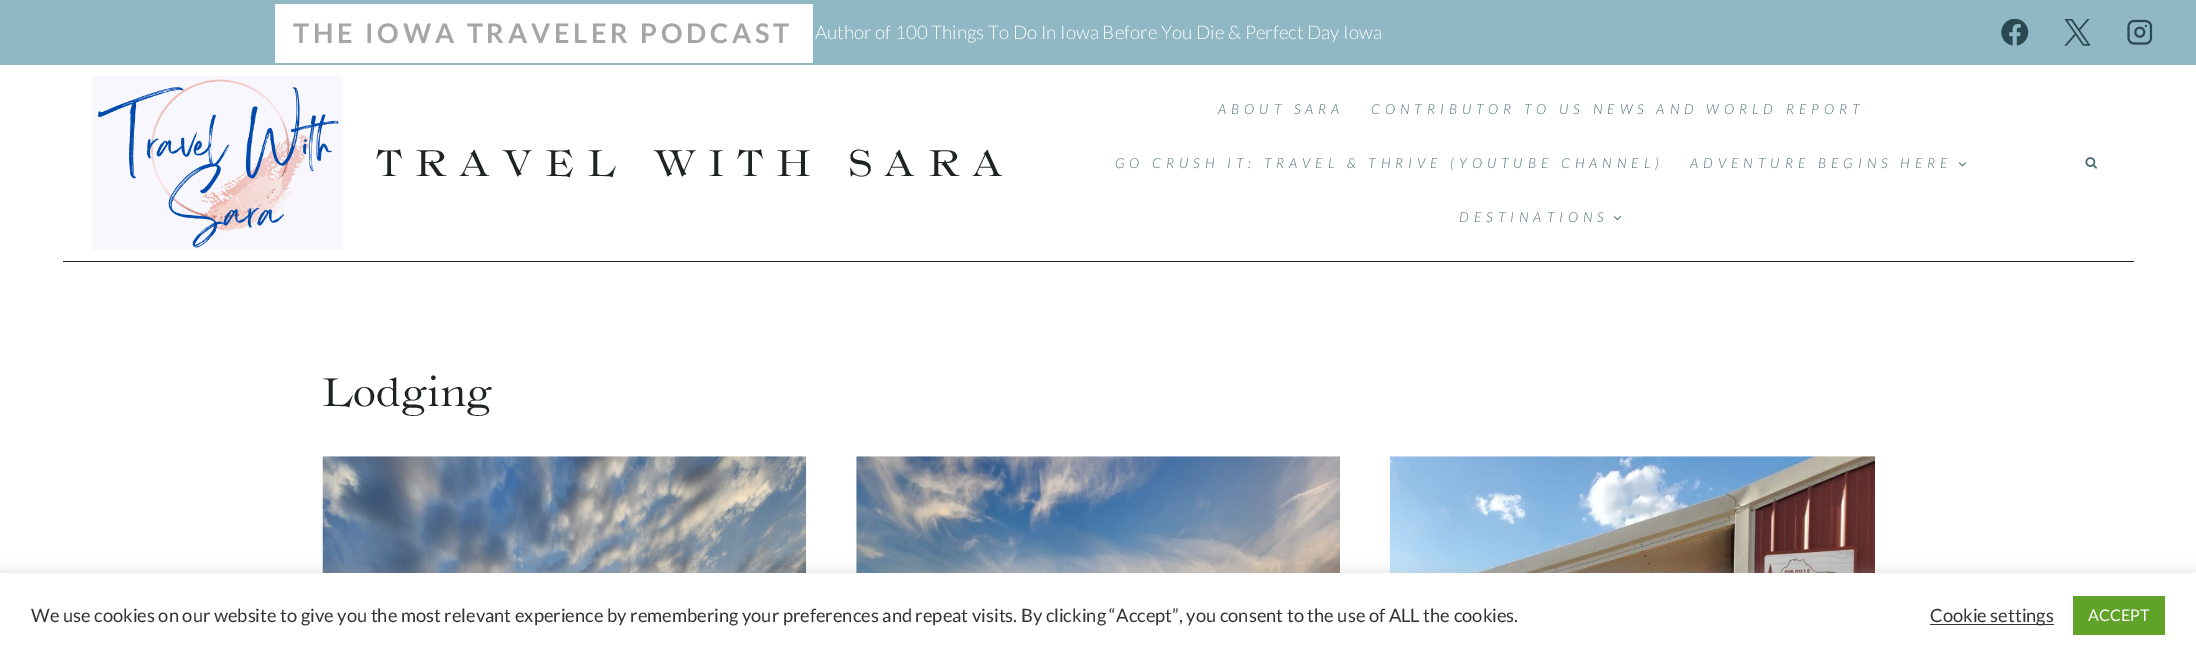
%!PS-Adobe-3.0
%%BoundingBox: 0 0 2196 658
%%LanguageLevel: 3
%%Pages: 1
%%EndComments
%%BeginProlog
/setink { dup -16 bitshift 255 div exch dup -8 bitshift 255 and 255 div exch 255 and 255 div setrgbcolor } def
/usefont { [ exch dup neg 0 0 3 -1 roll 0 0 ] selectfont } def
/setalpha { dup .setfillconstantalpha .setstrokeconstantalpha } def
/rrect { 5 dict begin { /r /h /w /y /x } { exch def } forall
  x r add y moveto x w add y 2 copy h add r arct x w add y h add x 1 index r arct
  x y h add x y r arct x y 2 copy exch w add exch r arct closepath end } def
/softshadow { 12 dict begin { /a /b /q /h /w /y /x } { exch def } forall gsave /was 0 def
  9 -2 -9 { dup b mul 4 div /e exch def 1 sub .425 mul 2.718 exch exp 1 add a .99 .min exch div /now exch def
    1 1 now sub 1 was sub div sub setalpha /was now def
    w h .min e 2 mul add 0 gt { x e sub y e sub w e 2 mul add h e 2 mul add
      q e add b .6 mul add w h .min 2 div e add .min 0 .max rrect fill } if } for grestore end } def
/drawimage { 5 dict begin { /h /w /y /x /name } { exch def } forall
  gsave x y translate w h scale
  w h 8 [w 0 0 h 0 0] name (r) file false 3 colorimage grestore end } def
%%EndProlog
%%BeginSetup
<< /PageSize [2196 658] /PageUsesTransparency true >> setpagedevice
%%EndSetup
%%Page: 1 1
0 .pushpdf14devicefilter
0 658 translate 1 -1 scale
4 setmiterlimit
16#FFFFFF setink
0 0 2196 658 rectfill
16#8FB7C4 setink
0 0 2196 65 rectfill
16#FFFFFF setink
275 4 538 59 rectfill
/Lato-Bold 27 usefont
16#A6A6A6 setink
293 43 moveto 3.75 0 (THE IOWA TRAVELER PODCAST) ashow
/Lato-Light 18.75 usefont
16#FFFFFF setink
815 39 moveto (Author of 100 Things To Do In Iowa Before You Die & Perfect Day Iowa) show
(img1.raw) 2001 19 28 27 drawimage
(img2.raw) 2064 19 27 27 drawimage
(img3.raw) 2127 19 26 26 drawimage
16#1F2423 setink
63 261 2071 1 rectfill
(img4.raw) 92 76 251 174 drawimage
/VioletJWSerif-Regular 37.5 usefont
376 176 moveto 12.5 0 (TRAVEL WITH SARA) ashow
/Lato-LightItalic 13.75 usefont
16#486C75 setink
1218 114 moveto 5 0 (ABOUT SARA) ashow
1371 114 moveto 5 0 (CONTRIBUTOR TO US NEWS AND WORLD REPORT) ashow
1115 168 moveto 5 0 (GO CRUSH IT: TRAVEL & THRIVE \(YOUTUBE CHANNEL\)) ashow
1690 168 moveto 5 0 (ADVENTURE BEGINS HERE) ashow
(img5.raw) 1958 162 8 5 drawimage
1459 222 moveto 5 0 (DESTINATIONS) ashow
(img6.raw) 1613 216 8 5 drawimage
(img7.raw) 2085 157 12 12 drawimage
/VioletJWSerif-Regular 40 usefont
16#1F2423 setink
322 406 moveto (Lodging) show
(img8.raw) 322 456 485 117 drawimage
(img9.raw) 856 456 484 117 drawimage
(img10.raw) 1390 456 485 117 drawimage
16#ACABAB setink
0 571 2196 87 0 6 0.3 softshadow
16#FFFFFF setink
0 573 2196 85 rectfill
/Lato-Regular 18.33 usefont
16#333333 setink
31 622 moveto (We use cookies on our website to give you the most relevant experience by remembering your preferences and repeat visits. By clicking “Accept”, you consent to the use of ALL the cookies.) show
1930 624 124 1 rectfill
1930 622 moveto (Cookie settings) show
16#61A229 setink
2073 596 92 39 rectfill
/Lato-Regular 16 usefont
16#FFFFFF setink
2088 621 moveto (ACCEPT) show
.poppdf14devicefilter showpage
%%EOF
